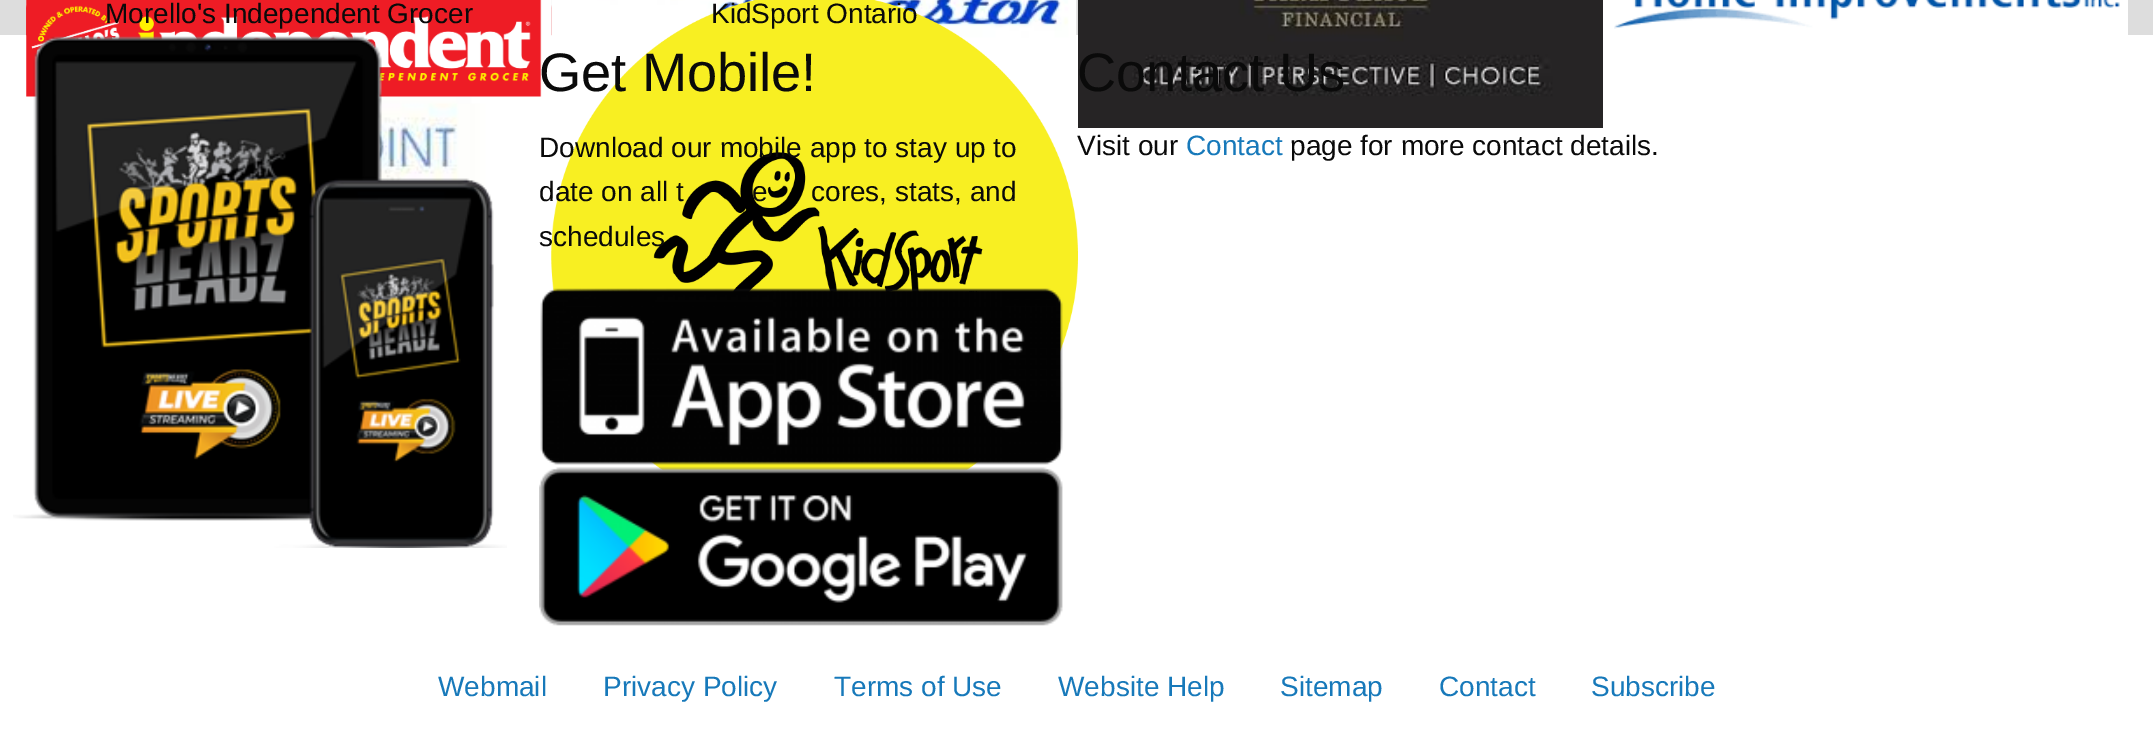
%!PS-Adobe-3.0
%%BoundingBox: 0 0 2153 747
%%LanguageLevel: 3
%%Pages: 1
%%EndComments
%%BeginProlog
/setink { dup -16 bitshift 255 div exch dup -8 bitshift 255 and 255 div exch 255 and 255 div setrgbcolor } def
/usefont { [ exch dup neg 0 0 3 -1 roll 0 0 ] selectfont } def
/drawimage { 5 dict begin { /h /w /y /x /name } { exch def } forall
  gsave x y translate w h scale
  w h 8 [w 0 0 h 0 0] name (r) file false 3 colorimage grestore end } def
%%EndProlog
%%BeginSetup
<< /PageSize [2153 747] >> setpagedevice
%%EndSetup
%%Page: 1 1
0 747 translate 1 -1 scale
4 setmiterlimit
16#FFFFFF setink
0 0 2153 747 rectfill
16#DDDDDD setink
0 0 2153 35 rectfill
(img3.raw) 551 0 526 39 drawimage
(img1.raw) 26 0 526 36 drawimage
(img7.raw) 379 96 108 101 drawimage
(img2.raw) 26 0 526 97 drawimage
/LiberationSans-Regular 28 usefont
16#0A0A0A setink
105 23 moveto (Morello's Independent Grocer) show
(img4.raw) 1078 0 525 128 drawimage
(img5.raw) 1603 0 525 35 drawimage
(img6.raw) 551 0 527 472 drawimage
711 23 moveto (KidSport Ontario) show
(img8.raw) 13 35 494 513 drawimage
/LiberationSans-Regular 54.25 usefont
539 91 moveto (Get Mobile!) show
/LiberationSans-Regular 28 usefont
[
    [(Download our mobile app to stay up to) 539 157]
    [(date on all t) 539 201]
    [(e) 752 201]
    [(cores, stats, and) 811 201]
    [(schedules) 539 246]
] { aload pop moveto show } forall
(img9.raw) 540 288 523 177 drawimage
(img10.raw) 539 467 524 159 drawimage
/LiberationSans-Regular 54.25 usefont
1077 91 moveto (Contact Us) show
/LiberationSans-Regular 28 usefont
1077 155 moveto (Visit our) show
16#1779BA setink
1186 155 moveto (Contact) show
16#0A0A0A setink
1290 155 moveto (page for more contact details.) show
16#1779BA setink
[
    [(Webmail) 438 696]
    [(Privacy Policy) 603 696]
    [(Terms of Use) 834 696]
    [(Website Help) 1058 696]
    [(Sitemap) 1280 696]
    [(Contact) 1439 696]
    [(Subscribe) 1591 696]
] { aload pop moveto show } forall
showpage
%%EOF
